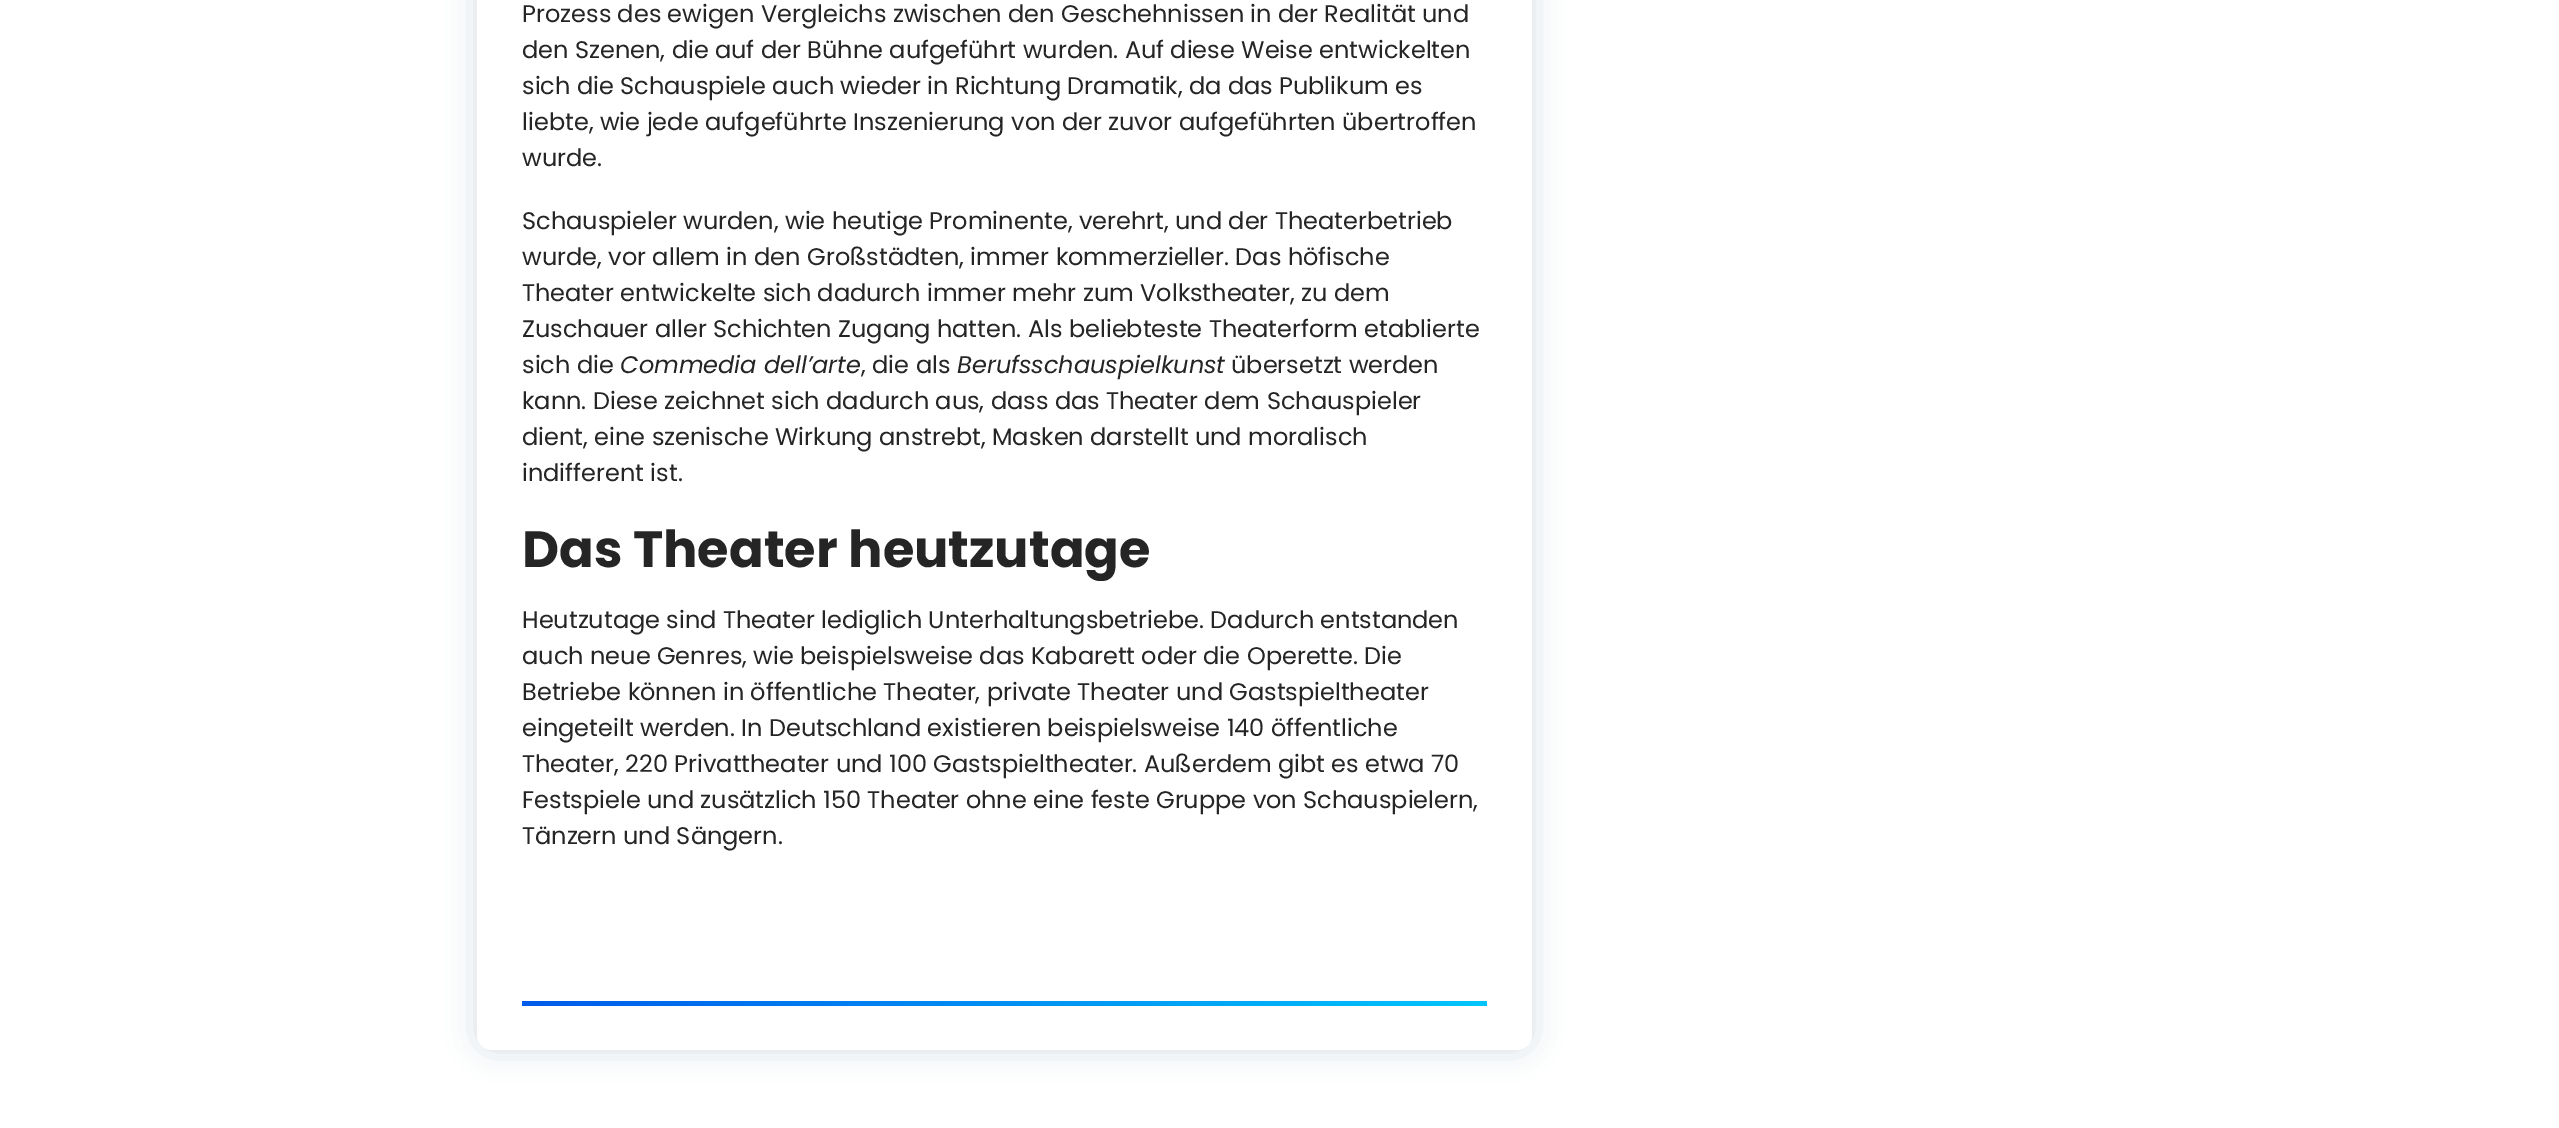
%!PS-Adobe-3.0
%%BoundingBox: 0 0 2559 1128
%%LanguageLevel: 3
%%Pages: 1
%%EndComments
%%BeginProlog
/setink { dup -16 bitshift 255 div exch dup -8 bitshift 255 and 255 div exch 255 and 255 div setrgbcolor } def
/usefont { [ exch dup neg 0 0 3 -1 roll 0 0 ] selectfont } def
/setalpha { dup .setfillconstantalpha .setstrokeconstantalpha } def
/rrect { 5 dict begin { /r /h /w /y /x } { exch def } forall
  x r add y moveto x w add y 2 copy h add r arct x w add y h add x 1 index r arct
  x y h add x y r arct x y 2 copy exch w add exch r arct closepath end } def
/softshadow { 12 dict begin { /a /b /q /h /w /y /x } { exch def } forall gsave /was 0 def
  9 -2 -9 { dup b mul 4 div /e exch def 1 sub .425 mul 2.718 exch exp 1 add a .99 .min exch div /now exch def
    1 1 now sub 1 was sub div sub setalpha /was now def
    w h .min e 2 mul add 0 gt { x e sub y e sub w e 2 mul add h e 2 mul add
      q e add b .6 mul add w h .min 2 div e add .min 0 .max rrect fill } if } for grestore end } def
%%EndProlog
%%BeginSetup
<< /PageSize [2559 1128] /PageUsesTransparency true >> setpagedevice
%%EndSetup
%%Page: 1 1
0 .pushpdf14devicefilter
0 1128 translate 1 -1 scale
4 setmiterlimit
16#FFFFFF setink
0 0 2559 1128 rectfill
16#214462 setink
477 -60 1055 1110 15 15 0.19 softshadow
16#FFFFFF setink
477 -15 1055 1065 15 rrect fill
/Poppins-Regular 24 usefont
16#252525 setink
[
    [(Prozess des ewigen Vergleichs zwischen den Geschehnissen in der Realität und) 522 22]
    [(den Szenen, die auf der Bühne aufgeführt wurden. Auf diese Weise entwickelten) 522 58]
    [(sich die Schauspiele auch wieder in Richtung Dramatik, da das Publikum es) 522 94]
    [(liebte, wie jede aufgeführte Inszenierung von der zuvor aufgeführten übertroffen) 522 130]
    [(wurde.) 522 166]
    [(Schauspieler wurden, wie heutige Prominente, verehrt, und der Theaterbetrieb) 522 229]
    [(wurde, vor allem in den Großstädten, immer kommerzieller. Das höfische) 522 265]
    [(Theater entwickelte sich dadurch immer mehr zum Volkstheater, zu dem) 522 301]
    [(Zuschauer aller Schichten Zugang hatten. Als beliebteste Theaterform etablierte) 522 337]
    [(sich die) 522 373]
] { aload pop moveto show } forall
/Poppins-Italic 24 usefont
620 373 moveto (Commedia dell’arte) show
/Poppins-Regular 24 usefont
861 373 moveto (, die als) show
/Poppins-Italic 24 usefont
957 373 moveto (Berufsschauspielkunst) show
/Poppins-Regular 24 usefont
[
    [(übersetzt werden) 1231 373]
    [(kann. Diese zeichnet sich dadurch aus, dass das Theater dem Schauspieler) 522 409]
    [(dient, eine szenische Wirkung anstrebt, Masken darstellt und moralisch) 522 445]
    [(indifferent ist.) 522 481]
] { aload pop moveto show } forall
/Poppins-Bold 51 usefont
522 567 moveto (Das Theater heutzutage) show
/Poppins-Regular 24 usefont
[
    [(Heutzutage sind Theater lediglich Unterhaltungsbetriebe. Dadurch entstanden) 522 628]
    [(auch neue Genres, wie beispielsweise das Kabarett oder die Operette. Die) 522 664]
    [(Betriebe können in öffentliche Theater, private Theater und Gastspieltheater) 522 700]
    [(eingeteilt werden. In Deutschland existieren beispielsweise 140 öffentliche) 522 736]
    [(Theater, 220 Privattheater und 100 Gastspieltheater. Außerdem gibt es etwa 70) 522 772]
    [(Festspiele und zusätzlich 150 Theater ohne eine feste Gruppe von Schauspielern,) 522 808]
    [(Tänzern und Sängern.) 522 844]
] { aload pop moveto show } forall
gsave 522 1001 moveto 1487 1001 lineto 1487 1006 lineto 522 1006 lineto closepath clip newpath
<< /ShadingType 2 /ColorSpace /DeviceRGB /Coords [1230 761 779 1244] /Extend [true true] /Function << /FunctionType 2 /Domain [0 1] /C0 [0 0.776 0.984] /C1 [0 0.357 0.918] /N 1 >> >> shfill grestore
.poppdf14devicefilter showpage
%%EOF
